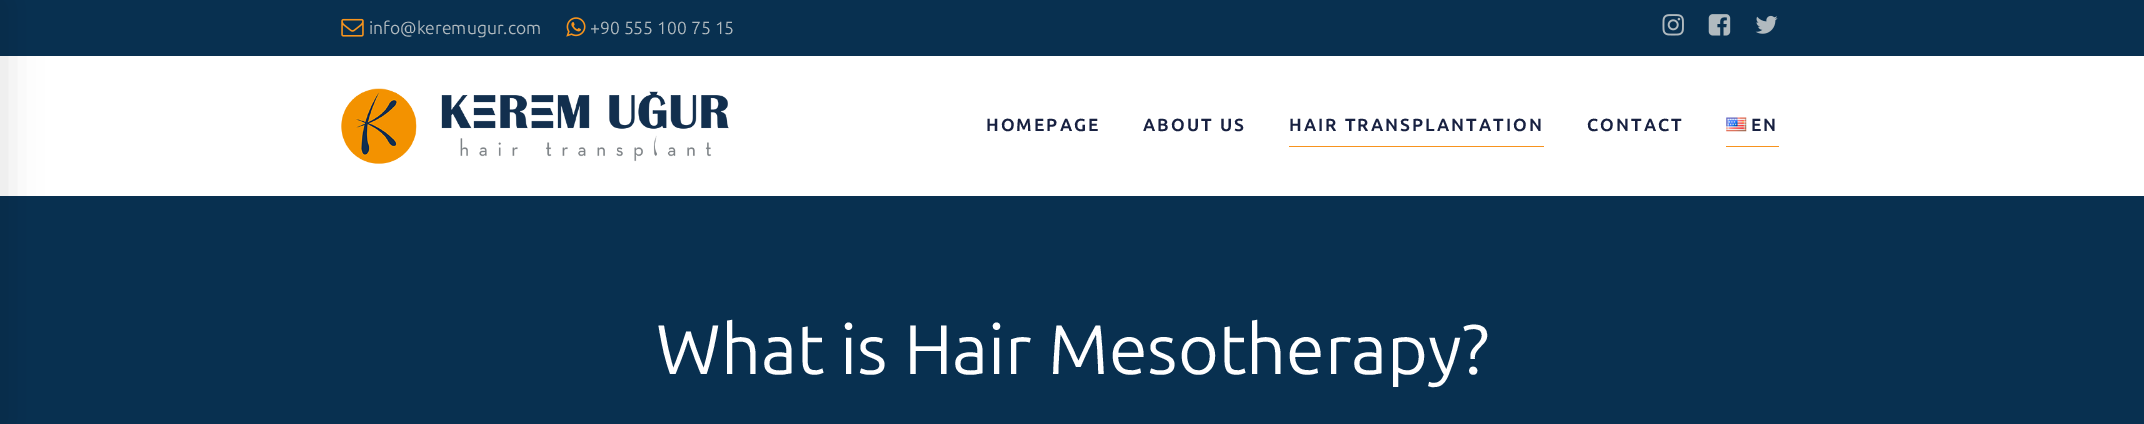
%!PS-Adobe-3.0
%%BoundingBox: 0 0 2144 424
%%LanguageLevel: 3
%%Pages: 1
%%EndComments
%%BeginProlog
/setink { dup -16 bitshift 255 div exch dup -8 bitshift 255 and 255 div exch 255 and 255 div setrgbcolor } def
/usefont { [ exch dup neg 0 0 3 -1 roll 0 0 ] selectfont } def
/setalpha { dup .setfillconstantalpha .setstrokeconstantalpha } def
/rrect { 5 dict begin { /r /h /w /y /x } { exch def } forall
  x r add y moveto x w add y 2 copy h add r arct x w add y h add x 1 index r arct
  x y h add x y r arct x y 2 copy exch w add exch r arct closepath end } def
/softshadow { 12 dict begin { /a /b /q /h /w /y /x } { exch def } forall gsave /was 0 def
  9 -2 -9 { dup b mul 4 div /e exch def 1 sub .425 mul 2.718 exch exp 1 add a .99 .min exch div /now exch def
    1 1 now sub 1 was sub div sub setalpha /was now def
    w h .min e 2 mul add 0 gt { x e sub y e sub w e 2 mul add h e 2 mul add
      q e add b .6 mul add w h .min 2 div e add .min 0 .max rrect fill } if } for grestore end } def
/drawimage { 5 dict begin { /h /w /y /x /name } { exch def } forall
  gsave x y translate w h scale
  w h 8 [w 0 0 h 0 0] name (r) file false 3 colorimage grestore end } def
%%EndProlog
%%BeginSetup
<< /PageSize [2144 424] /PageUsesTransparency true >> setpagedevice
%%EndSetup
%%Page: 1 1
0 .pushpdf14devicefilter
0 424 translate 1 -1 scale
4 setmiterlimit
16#083050 setink
0 0 2144 424 rectfill
16#FFFFFF setink
0 56 2144 140 rectfill
16#000000 setink
-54 1 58 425 0 18 0.12 softshadow
(img1.raw) 341 18 23 19 drawimage
/Ubuntu-Regular 17.5 usefont
16#B1BABF setink
369 34 moveto (info@keremugur.com) show
(img2.raw) 566 17 20 20 drawimage
590 34 moveto (+90 555 100 75 15) show
(img3.raw) 1662 14 22 22 drawimage
(img4.raw) 1708 14 23 22 drawimage
(img5.raw) 1755 15 23 19 drawimage
(img6.raw) 341 88 388 76 drawimage
/Ubuntu-Bold 17.5 usefont
16#182141 setink
986 131 moveto 2 0 (HOMEPAGE) ashow
1143 131 moveto 2 0 (ABOUT US) ashow
1289 131 moveto 2 0 (HAIR TRANSPLANTATION) ashow
16#F7931E setink
1289 146 255 1 rectfill
16#182141 setink
1587 131 moveto 2 0 (CONTACT) ashow
(img7.raw) 1726 117 21 15 drawimage
1751 131 moveto 2 0 (EN) ashow
16#F7931E setink
1726 146 53 1 rectfill
/Ubuntu-Regular 70 usefont
16#FFFFFF setink
656 374 moveto (What is Hair Mesotherapy?) show
.poppdf14devicefilter showpage
%%EOF
